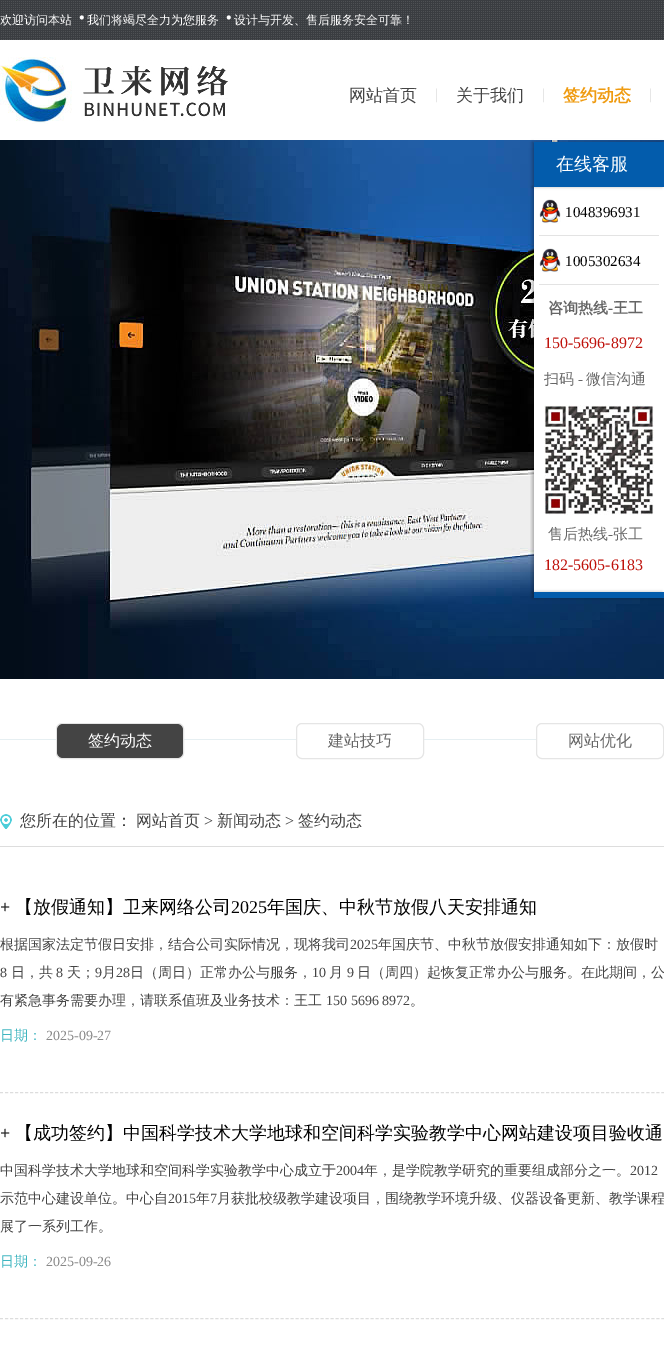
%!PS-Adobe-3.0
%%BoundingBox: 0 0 664 1346
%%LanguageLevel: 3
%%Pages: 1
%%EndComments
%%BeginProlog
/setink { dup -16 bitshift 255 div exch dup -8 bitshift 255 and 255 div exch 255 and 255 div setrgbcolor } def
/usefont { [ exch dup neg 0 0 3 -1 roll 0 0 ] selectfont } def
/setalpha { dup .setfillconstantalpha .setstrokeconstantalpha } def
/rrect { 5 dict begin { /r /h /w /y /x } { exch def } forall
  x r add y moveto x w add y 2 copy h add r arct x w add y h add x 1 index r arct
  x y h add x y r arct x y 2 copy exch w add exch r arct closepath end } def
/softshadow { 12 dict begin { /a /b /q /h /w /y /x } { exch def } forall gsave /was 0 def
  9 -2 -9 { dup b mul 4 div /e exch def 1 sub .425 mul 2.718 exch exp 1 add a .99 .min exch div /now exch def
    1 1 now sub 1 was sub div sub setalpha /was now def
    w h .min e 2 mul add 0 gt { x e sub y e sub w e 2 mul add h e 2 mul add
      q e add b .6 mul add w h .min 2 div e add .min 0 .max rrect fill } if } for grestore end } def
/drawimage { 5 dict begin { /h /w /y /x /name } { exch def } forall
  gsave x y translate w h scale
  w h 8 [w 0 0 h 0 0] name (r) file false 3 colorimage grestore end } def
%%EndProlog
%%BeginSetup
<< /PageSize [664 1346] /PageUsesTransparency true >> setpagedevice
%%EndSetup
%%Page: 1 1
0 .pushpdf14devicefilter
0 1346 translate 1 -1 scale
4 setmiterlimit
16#FFFFFF setink
0 0 664 1346 rectfill
(img3.raw) 0 140 664 539 drawimage
534 187 130 405 rectfill
16#000000 setink
532 142 130 45 0 1.5 0.25 softshadow
16#FFFFFF setink
534 139 126 1 rectfill
(img1.raw) 0 0 664 40 drawimage
/WenQuanYiZenHei-Medium 12 usefont
0 24 moveto (欢迎访问本站) show
/LiberationSerif-Regular 35 usefont
76 29 moveto (·) show
/WenQuanYiZenHei-Medium 12 usefont
87 24 moveto (我们将竭尽全力为您服务) show
/LiberationSerif-Regular 35 usefont
223 29 moveto (·) show
/WenQuanYiZenHei-Medium 12 usefont
234 24 moveto (设计与开发、售后服务安全可靠！) show
(img2.raw) 0 57 228 67 drawimage
/WenQuanYiZenHei-Medium 17 usefont
16#444444 setink
349 101 moveto (网站首页) show
/LiberationSerif-Regular 15 usefont
16#DDDDDD setink
435 99 moveto (|) show
/WenQuanYiZenHei-Medium 17 usefont
16#444444 setink
456 101 moveto (关于我们) show
/LiberationSerif-Regular 15 usefont
16#DDDDDD setink
542 99 moveto (|) show
/WenQuanYiZenHei-Bold 17 usefont
16#EF9B11 setink
563 101 moveto (签约动态) show
/LiberationSerif-Regular 15 usefont
16#DDDDDD setink
649 99 moveto (|) show
gsave
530 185 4 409 rectclip
16#000000 setink
532 187 130 405 0 1.5 0.25 softshadow
grestore
16#035CAC setink
534 142 130 45 rectfill
/WenQuanYiZenHei-Medium 18 usefont
16#FFFFFF setink
556 170 moveto (在线客服) show
16#E3E3E3 setink
539 235 120 1 rectfill
(img4.raw) 539 199 22 25 drawimage
/LiberationSerif-Regular 15 usefont
16#000000 setink
565 217 moveto (1048396931) show
16#E3E3E3 setink
539 284 120 1 rectfill
(img4.raw) 539 248 22 25 drawimage
16#000000 setink
565 266 moveto (1005302634) show
/WenQuanYiZenHei-Bold 15 usefont
16#666666 setink
548 313 moveto (咨询热线) show
/LiberationSerif-Bold 15 usefont
608 313 moveto (-) show
/WenQuanYiZenHei-Bold 15 usefont
613 313 moveto (王工) show
/LiberationSerif-Regular 16 usefont
16#BF120C setink
544 348 moveto (150-5696-8972) show
/WenQuanYiZenHei-Medium 15 usefont
16#666666 setink
544 384 moveto (扫码) show
/LiberationSerif-Regular 15 usefont
578 384 moveto (-) show
/WenQuanYiZenHei-Medium 15 usefont
586 384 moveto (微信沟通) show
(img5.raw) 544 405 110 110 drawimage
548 539 moveto (售后热线) show
/LiberationSerif-Regular 15 usefont
608 539 moveto (-) show
/WenQuanYiZenHei-Medium 15 usefont
613 539 moveto (张工) show
/LiberationSerif-Regular 16 usefont
16#BF120C setink
544 570 moveto (182-5605-6183) show
16#000000 setink
532 592 130 6 0 1.5 0.25 softshadow
16#035CAC setink
534 592 130 6 rectfill
16#E6EFF2 setink
0 739 536 1 rectfill
16#FFFFFF setink
56.5 723.5 127 35 5.5 rrect gsave fill grestore
16#E5E5E5 setink
stroke
16#444444 setink
57 724 126 34 6 rrect fill
/WenQuanYiZenHei-Medium 16 usefont
16#FFFFFF setink
88 746 moveto (签约动态) show
296.5 723.5 127 35 5.5 rrect gsave fill grestore
16#E5E5E5 setink
stroke
16#666666 setink
328 746 moveto (建站技巧) show
16#E5E5E5 setink
536.5 723.5 127 35 5.5 rrect stroke
16#666666 setink
568 746 moveto (网站优化) show
(img6.raw) 0 814 12 15 drawimage
16#444444 setink
20 826 moveto (您所在的位置：) show
136 826 moveto (网站首页) show
/LiberationSerif-Regular 16 usefont
204 826 moveto (>) show
/WenQuanYiZenHei-Medium 16 usefont
217 826 moveto (新闻动态) show
/LiberationSerif-Regular 16 usefont
285 826 moveto (>) show
/WenQuanYiZenHei-Medium 16 usefont
298 826 moveto (签约动态) show
16#DDDDDD setink
0 846 664 1 rectfill
[3 2.01] 0 setdash
0 1092.5 moveto 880 1092.5 lineto stroke
/LiberationSerif-Regular 18 usefont
16#000000 setink
0 913 moveto (+) show
/WenQuanYiZenHei-Medium 18 usefont
15 913 moveto (【放假通知】卫来网络公司) show
/LiberationSerif-Regular 18 usefont
231 913 moveto (2025) show
/WenQuanYiZenHei-Medium 18 usefont
267 913 moveto (年国庆、中秋节放假八天安排通知) show
/WenQuanYiZenHei-Medium 14 usefont
16#444444 setink
0 949 moveto (根据国家法定节假日安排，结合公司实际情况，现将我司) show
/LiberationSerif-Regular 14 usefont
350 949 moveto (2025) show
/WenQuanYiZenHei-Medium 14 usefont
378 949 moveto (年国庆节、中秋节放假安排通知如下：放假时) show
/LiberationSerif-Regular 14 usefont
0 977 moveto (8) show
/WenQuanYiZenHei-Medium 14 usefont
11 977 moveto (日，共) show
/LiberationSerif-Regular 14 usefont
56 977 moveto (8) show
/WenQuanYiZenHei-Medium 14 usefont
67 977 moveto (天；) show
/LiberationSerif-Regular 14 usefont
95 977 moveto (9) show
/WenQuanYiZenHei-Medium 14 usefont
102 977 moveto (月) show
/LiberationSerif-Regular 14 usefont
116 977 moveto (28) show
/WenQuanYiZenHei-Medium 14 usefont
130 977 moveto (日（周日）正常办公与服务，) show
/LiberationSerif-Regular 14 usefont
312 977 moveto (10) show
/WenQuanYiZenHei-Medium 14 usefont
329 977 moveto (月) show
/LiberationSerif-Regular 14 usefont
347 977 moveto (9) show
/WenQuanYiZenHei-Medium 14 usefont
357 977 moveto (日（周四）起恢复正常办公与服务。在此期间，公) show
0 1005 moveto (有紧急事务需要办理，请联系值班及业务技术：王工) show
/LiberationSerif-Regular 14 usefont
326 1005 moveto (150 5696 8972) show
/WenQuanYiZenHei-Medium 14 usefont
410 1005 moveto (。) show
16#3FB5C0 setink
0 1040 moveto (日期：) show
/LiberationSerif-Regular 14 usefont
16#888888 setink
46 1040 moveto (2025-09-27) show
16#DDDDDD setink
0 1318.5 moveto 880 1318.5 lineto stroke
/LiberationSerif-Regular 18 usefont
16#000000 setink
0 1139 moveto (+) show
/WenQuanYiZenHei-Medium 18 usefont
15 1139 moveto (【成功签约】中国科学技术大学地球和空间科学实验教学中心网站建设项目验收通) show
/WenQuanYiZenHei-Medium 14 usefont
16#444444 setink
0 1175 moveto (中国科学技术大学地球和空间科学实验教学中心成立于) show
/LiberationSerif-Regular 14 usefont
336 1175 moveto (2004) show
/WenQuanYiZenHei-Medium 14 usefont
364 1175 moveto (年，是学院教学研究的重要组成部分之一。) show
/LiberationSerif-Regular 14 usefont
630 1175 moveto (2012) show
/WenQuanYiZenHei-Medium 14 usefont
0 1203 moveto (示范中心建设单位。中心自) show
/LiberationSerif-Regular 14 usefont
168 1203 moveto (2015) show
/WenQuanYiZenHei-Medium 14 usefont
196 1203 moveto (年) show
/LiberationSerif-Regular 14 usefont
210 1203 moveto (7) show
/WenQuanYiZenHei-Medium 14 usefont
217 1203 moveto (月获批校级教学建设项目，围绕教学环境升级、仪器设备更新、教学课程) show
0 1231 moveto (展了一系列工作。) show
16#3FB5C0 setink
0 1266 moveto (日期：) show
/LiberationSerif-Regular 14 usefont
16#888888 setink
46 1266 moveto (2025-09-26) show
.poppdf14devicefilter showpage
%%EOF
